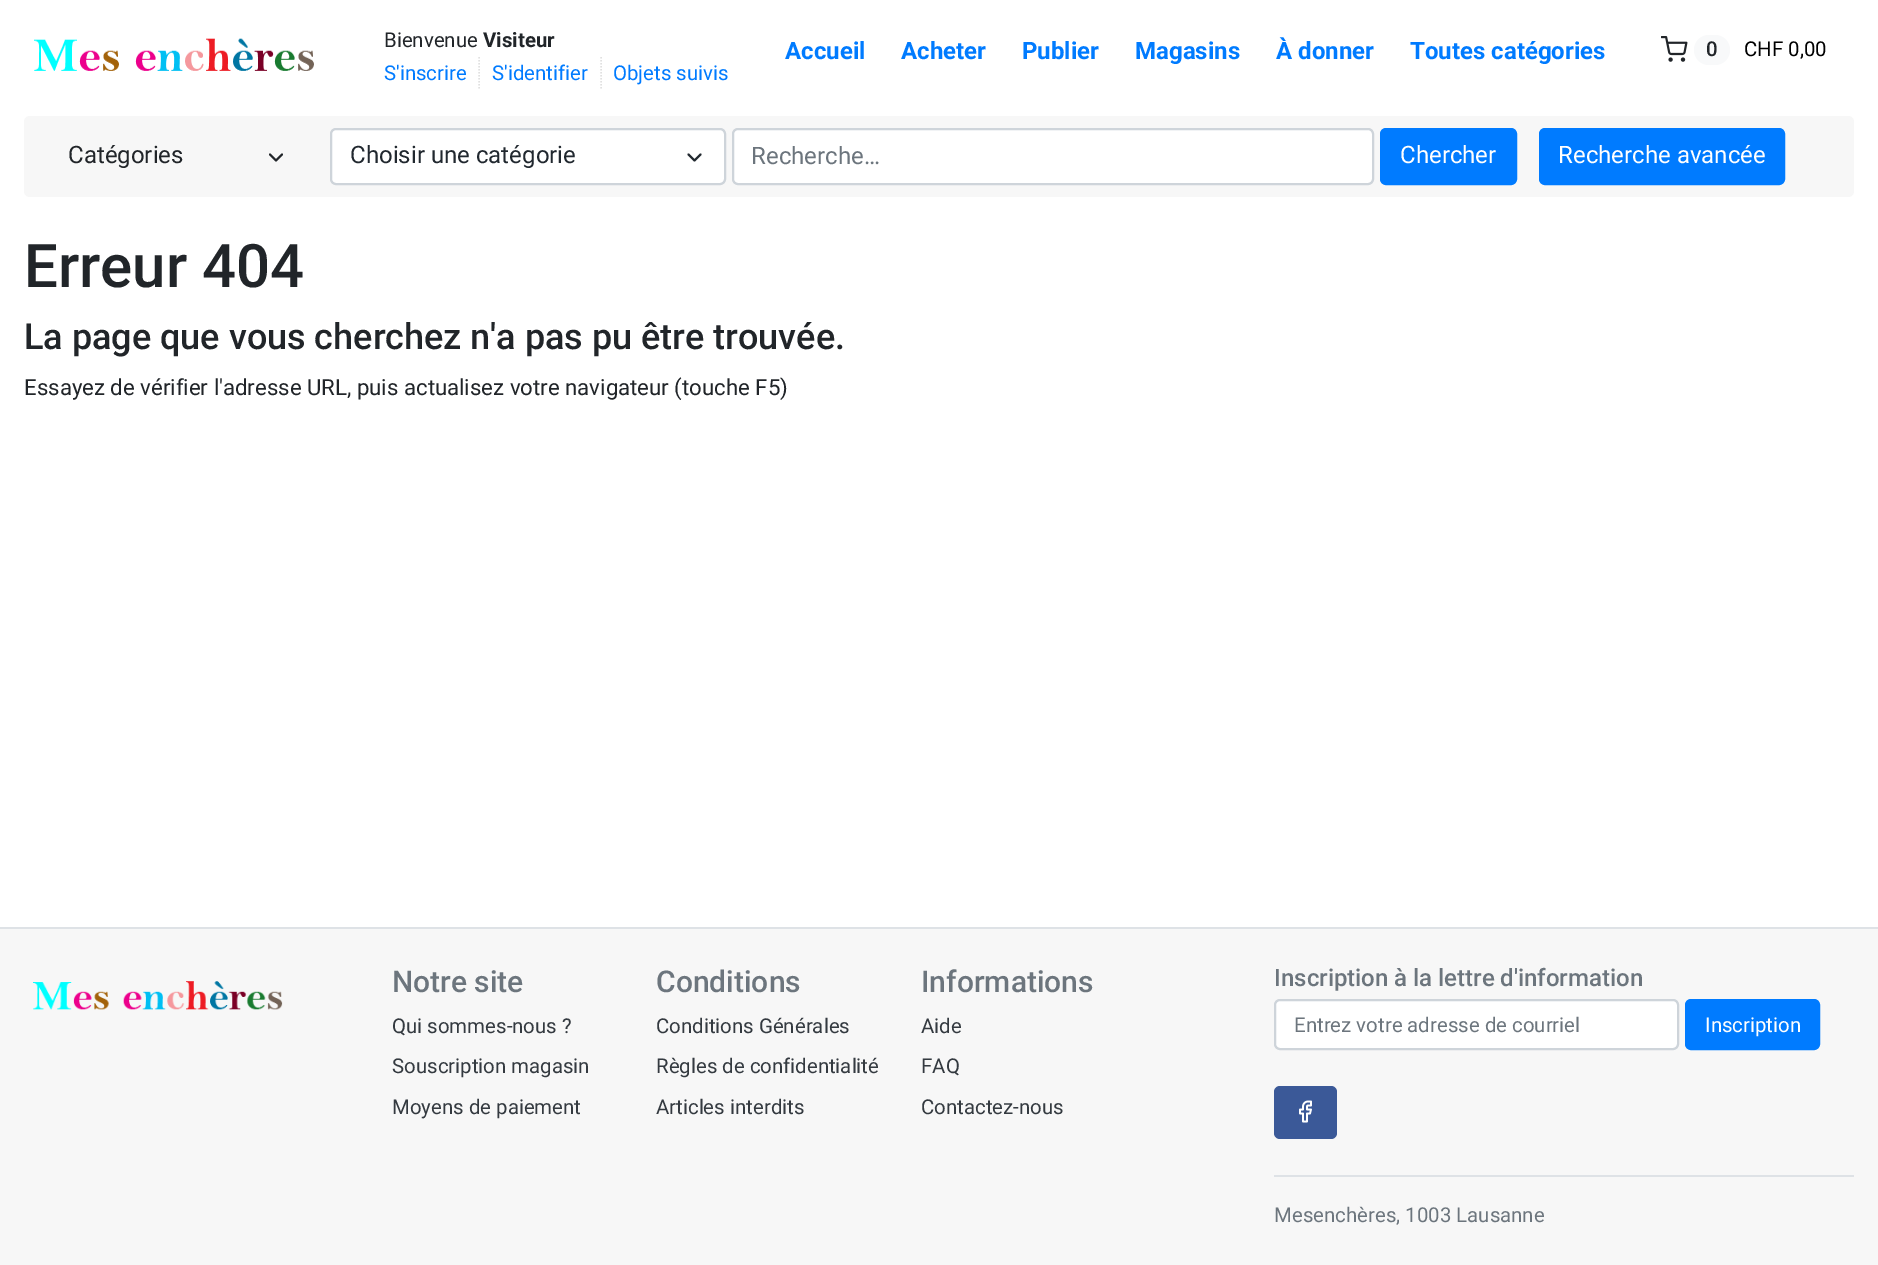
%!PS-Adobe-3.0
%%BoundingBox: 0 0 1878 1265
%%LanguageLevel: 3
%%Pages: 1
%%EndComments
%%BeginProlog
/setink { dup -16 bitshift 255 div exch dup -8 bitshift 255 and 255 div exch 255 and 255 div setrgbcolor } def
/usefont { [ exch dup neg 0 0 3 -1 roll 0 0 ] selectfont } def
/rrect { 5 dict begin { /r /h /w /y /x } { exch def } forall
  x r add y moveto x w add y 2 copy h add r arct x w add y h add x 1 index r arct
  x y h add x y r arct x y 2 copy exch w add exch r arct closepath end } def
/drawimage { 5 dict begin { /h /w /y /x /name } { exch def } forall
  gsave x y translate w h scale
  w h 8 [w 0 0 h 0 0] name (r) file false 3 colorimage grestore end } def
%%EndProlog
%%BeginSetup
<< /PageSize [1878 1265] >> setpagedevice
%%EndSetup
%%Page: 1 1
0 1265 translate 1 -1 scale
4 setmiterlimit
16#FFFFFF setink
0 0 1878 1265 rectfill
(img1.raw) 34 38 280 33 drawimage
/Roboto-Regular 20.4 usefont
16#212529 setink
384 47 moveto (Bienvenue) show
/Roboto-Bold 20.4 usefont
483 47 moveto (Visiteur) show
/Roboto-Regular 20.4 usefont
16#007BFF setink
384 80 moveto (S'inscrire) show
16#E0E0E0 setink
1.5 setlinewidth
[1.5 1.5] 0 setdash
479 57 moveto 479 88.5 lineto stroke
16#007BFF setink
492 80 moveto (S'identifier) show
16#E0E0E0 setink
601 57 moveto 601 88.5 lineto stroke
16#007BFF setink
613 80 moveto (Objets suivis) show
/Roboto-Bold 24 usefont
[
    [(Accueil) 785 59]
    [(Acheter) 901 59]
    [(Publier) 1022 59]
    [(Magasins) 1135 59]
    [(À donner) 1276 59]
    [(Toutes catégories) 1410 59]
] { aload pop moveto show } forall
(img2.raw) 1661 36 27 26 drawimage
16#F8F9FA setink
1694 35 36 30 15 rrect fill
/Roboto-Medium 20.4 usefont
16#212529 setink
1706 56 moveto (0) show
/Roboto-Regular 20.4 usefont
16#000000 setink
1744 56 moveto (CHF 0,00) show
16#F7F7F7 setink
24 116 1830 81 6 rrect fill
/Roboto-Regular 24 usefont
16#212529 setink
68 163 moveto (Catégories) show
2 setlinewidth
1 setlinecap
1 setlinejoin
[] 0 setdash
270 154.5 moveto 276 160.5 lineto 282 154.5 lineto stroke
16#FFFFFF setink
331 129 394 55 5 rrect gsave fill grestore
16#CED4DA setink
0 setlinecap
0 setlinejoin
stroke
16#21282F setink
350 163 moveto (Choisir une catégorie) show
1 setlinecap
1 setlinejoin
688.5 154.5 moveto 694.5 160.5 lineto 700.5 154.5 lineto stroke
16#FFFFFF setink
733 129 640 55 5 rrect gsave fill grestore
16#CED4DA setink
0 setlinecap
0 setlinejoin
stroke
16#6C757D setink
751 164 moveto (Recherche…) show
16#007BFF setink
1381 129 135 55 5 rrect gsave fill grestore
stroke
16#FFFFFF setink
1400 163 moveto (Chercher) show
16#007BFF setink
1540 129 244 55 5 rrect gsave fill grestore
stroke
16#FFFFFF setink
1558 163 moveto (Recherche avancée) show
/Roboto-Medium 60 usefont
16#212529 setink
24 287 moveto (Erreur 404) show
/Roboto-Medium 36 usefont
24 349 moveto (La page que vous cherchez n'a pas pu être trouvée.) show
/Roboto-Regular 22.2 usefont
24 395 moveto (Essayez de vérifier l'adresse URL, puis actualisez votre navigateur \(touche F5\)) show
16#F7F7F7 setink
0 929 1878 336 rectfill
16#DEE2E6 setink
0 927 1878 2 rectfill
(img3.raw) 33 981 250 29 drawimage
/Roboto-Medium 30 usefont
16#6C757D setink
392 992 moveto (Notre site) show
/Roboto-Regular 20.4 usefont
16#343A40 setink
[
    [(Qui sommes-nous ?) 392 1033]
    [(Souscription magasin) 392 1073]
    [(Moyens de paiement) 392 1114]
] { aload pop moveto show } forall
/Roboto-Medium 30 usefont
16#6C757D setink
656 992 moveto (Conditions) show
/Roboto-Regular 20.4 usefont
16#343A40 setink
[
    [(Conditions Générales) 656 1033]
    [(Règles de confidentialité) 656 1073]
    [(Articles interdits) 656 1114]
] { aload pop moveto show } forall
/Roboto-Medium 30 usefont
16#6C757D setink
921 992 moveto (Informations) show
/Roboto-Regular 20.4 usefont
16#343A40 setink
[
    [(Aide) 921 1033]
    [(FAQ) 921 1073]
    [(Contactez-nous) 921 1114]
] { aload pop moveto show } forall
/Roboto-Medium 24 usefont
16#6C757D setink
1274 986 moveto (Inscription à la lettre d'information) show
16#FFFFFF setink
1275 1000 403 49 5 rrect gsave fill grestore
16#CED4DA setink
stroke
/Roboto-Regular 20.4 usefont
16#6C757D setink
1294 1032 moveto (Entrez votre adresse de courriel) show
16#007BFF setink
1686 1000 133 49 5 rrect gsave fill grestore
stroke
16#FFFFFF setink
1705 1032 moveto (Inscription) show
16#3B5998 setink
1274 1086 63 53 6 rrect fill
(img4.raw) 1299 1100 13 23 drawimage
16#DEE2E6 setink
1274 1175 580 2 rectfill
16#6C757D setink
1274 1222 moveto (Mesenchères, 1003 Lausanne) show
showpage
%%EOF
